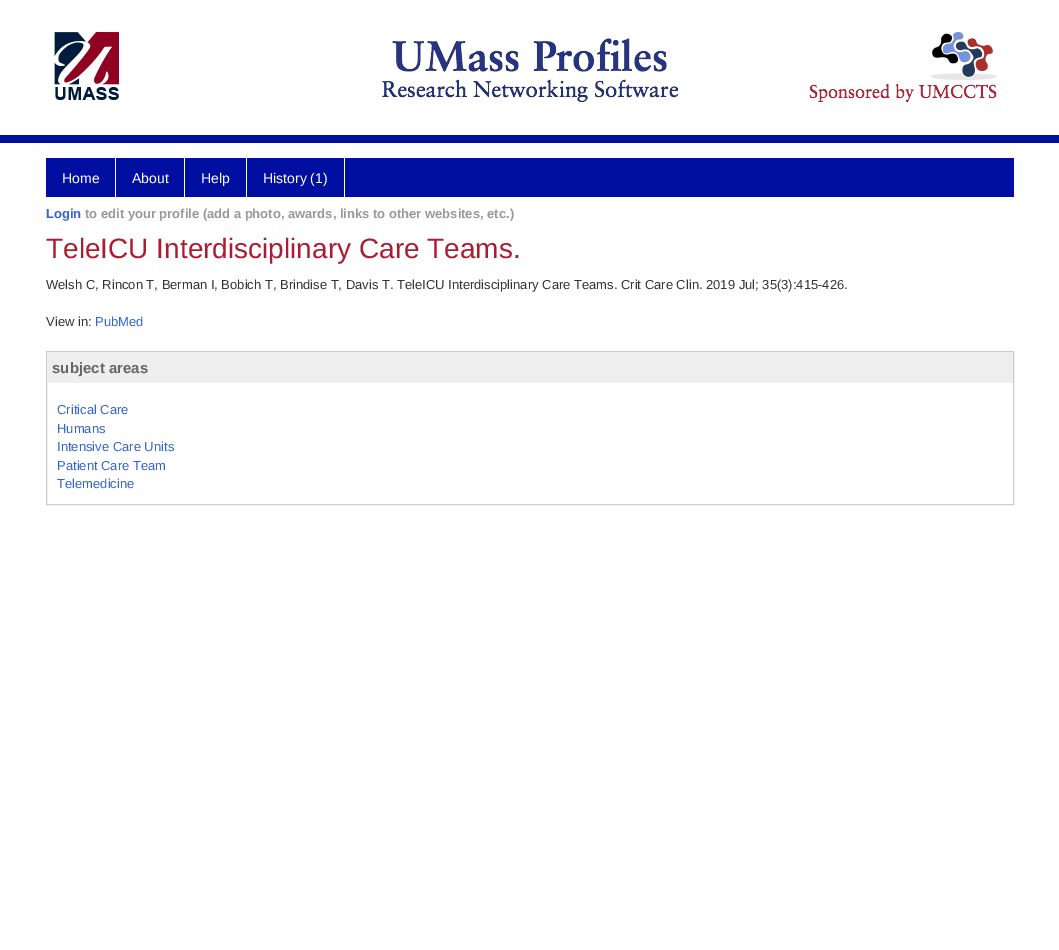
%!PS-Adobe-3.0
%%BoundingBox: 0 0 1059 950
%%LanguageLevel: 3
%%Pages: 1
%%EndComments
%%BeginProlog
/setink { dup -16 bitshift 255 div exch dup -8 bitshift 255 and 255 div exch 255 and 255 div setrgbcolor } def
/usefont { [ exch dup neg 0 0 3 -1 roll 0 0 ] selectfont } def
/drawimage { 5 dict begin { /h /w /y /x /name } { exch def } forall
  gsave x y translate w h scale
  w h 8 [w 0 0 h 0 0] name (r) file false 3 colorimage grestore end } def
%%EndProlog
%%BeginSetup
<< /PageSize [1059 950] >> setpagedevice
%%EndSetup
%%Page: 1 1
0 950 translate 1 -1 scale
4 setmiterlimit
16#FFFFFF setink
0 0 1059 950 rectfill
16#000F9F setink
0 135 1059 8 rectfill
(img1.raw) 54 32 943 71 drawimage
46 158 968 39 rectfill
16#FFFFFF setink
115 158 1 39 rectfill
/LiberationSans-Regular 14 usefont
62 183 moveto (Home) show
184 158 1 39 rectfill
132 183 moveto (About) show
246 158 1 39 rectfill
201 183 moveto (Help) show
344 158 1 39 rectfill
263 183 moveto (History \(1\)) show
/LiberationSans-Bold 13 usefont
16#3366CC setink
46 218 moveto (Login) show
16#999999 setink
85 218 moveto (to edit your profile \(add a photo, awards, links to other websites, etc.\)) show
/LiberationSans-Regular 28 usefont
16#AC1B30 setink
46 258 moveto (TeleICU Interdisciplinary Care Teams.) show
/LiberationSans-Regular 13 usefont
16#333333 setink
46 289 moveto (Welsh C, Rincon T, Berman I, Bobich T, Brindise T, Davis T. TeleICU Interdisciplinary Care Teams. Crit Care Clin. 2019 Jul; 35\(3\):415-426.) show
46 326 moveto (View in:) show
16#3366CC setink
95 326 moveto (PubMed) show
16#CCCCCC setink
46.5 351.5 967 153 rectstroke
16#EEEEEE setink
47 352 966 31 rectfill
/LiberationSans-Bold 15 usefont
16#666666 setink
52 373 moveto (subject areas) show
/LiberationSans-Regular 13 usefont
16#3366CC setink
[
    [(Critical Care) 57 414]
    [(Humans) 57 433]
    [(Intensive Care Units) 57 451]
    [(Patient Care Team) 57 470]
    [(Telemedicine) 57 488]
] { aload pop moveto show } forall
showpage
%%EOF
